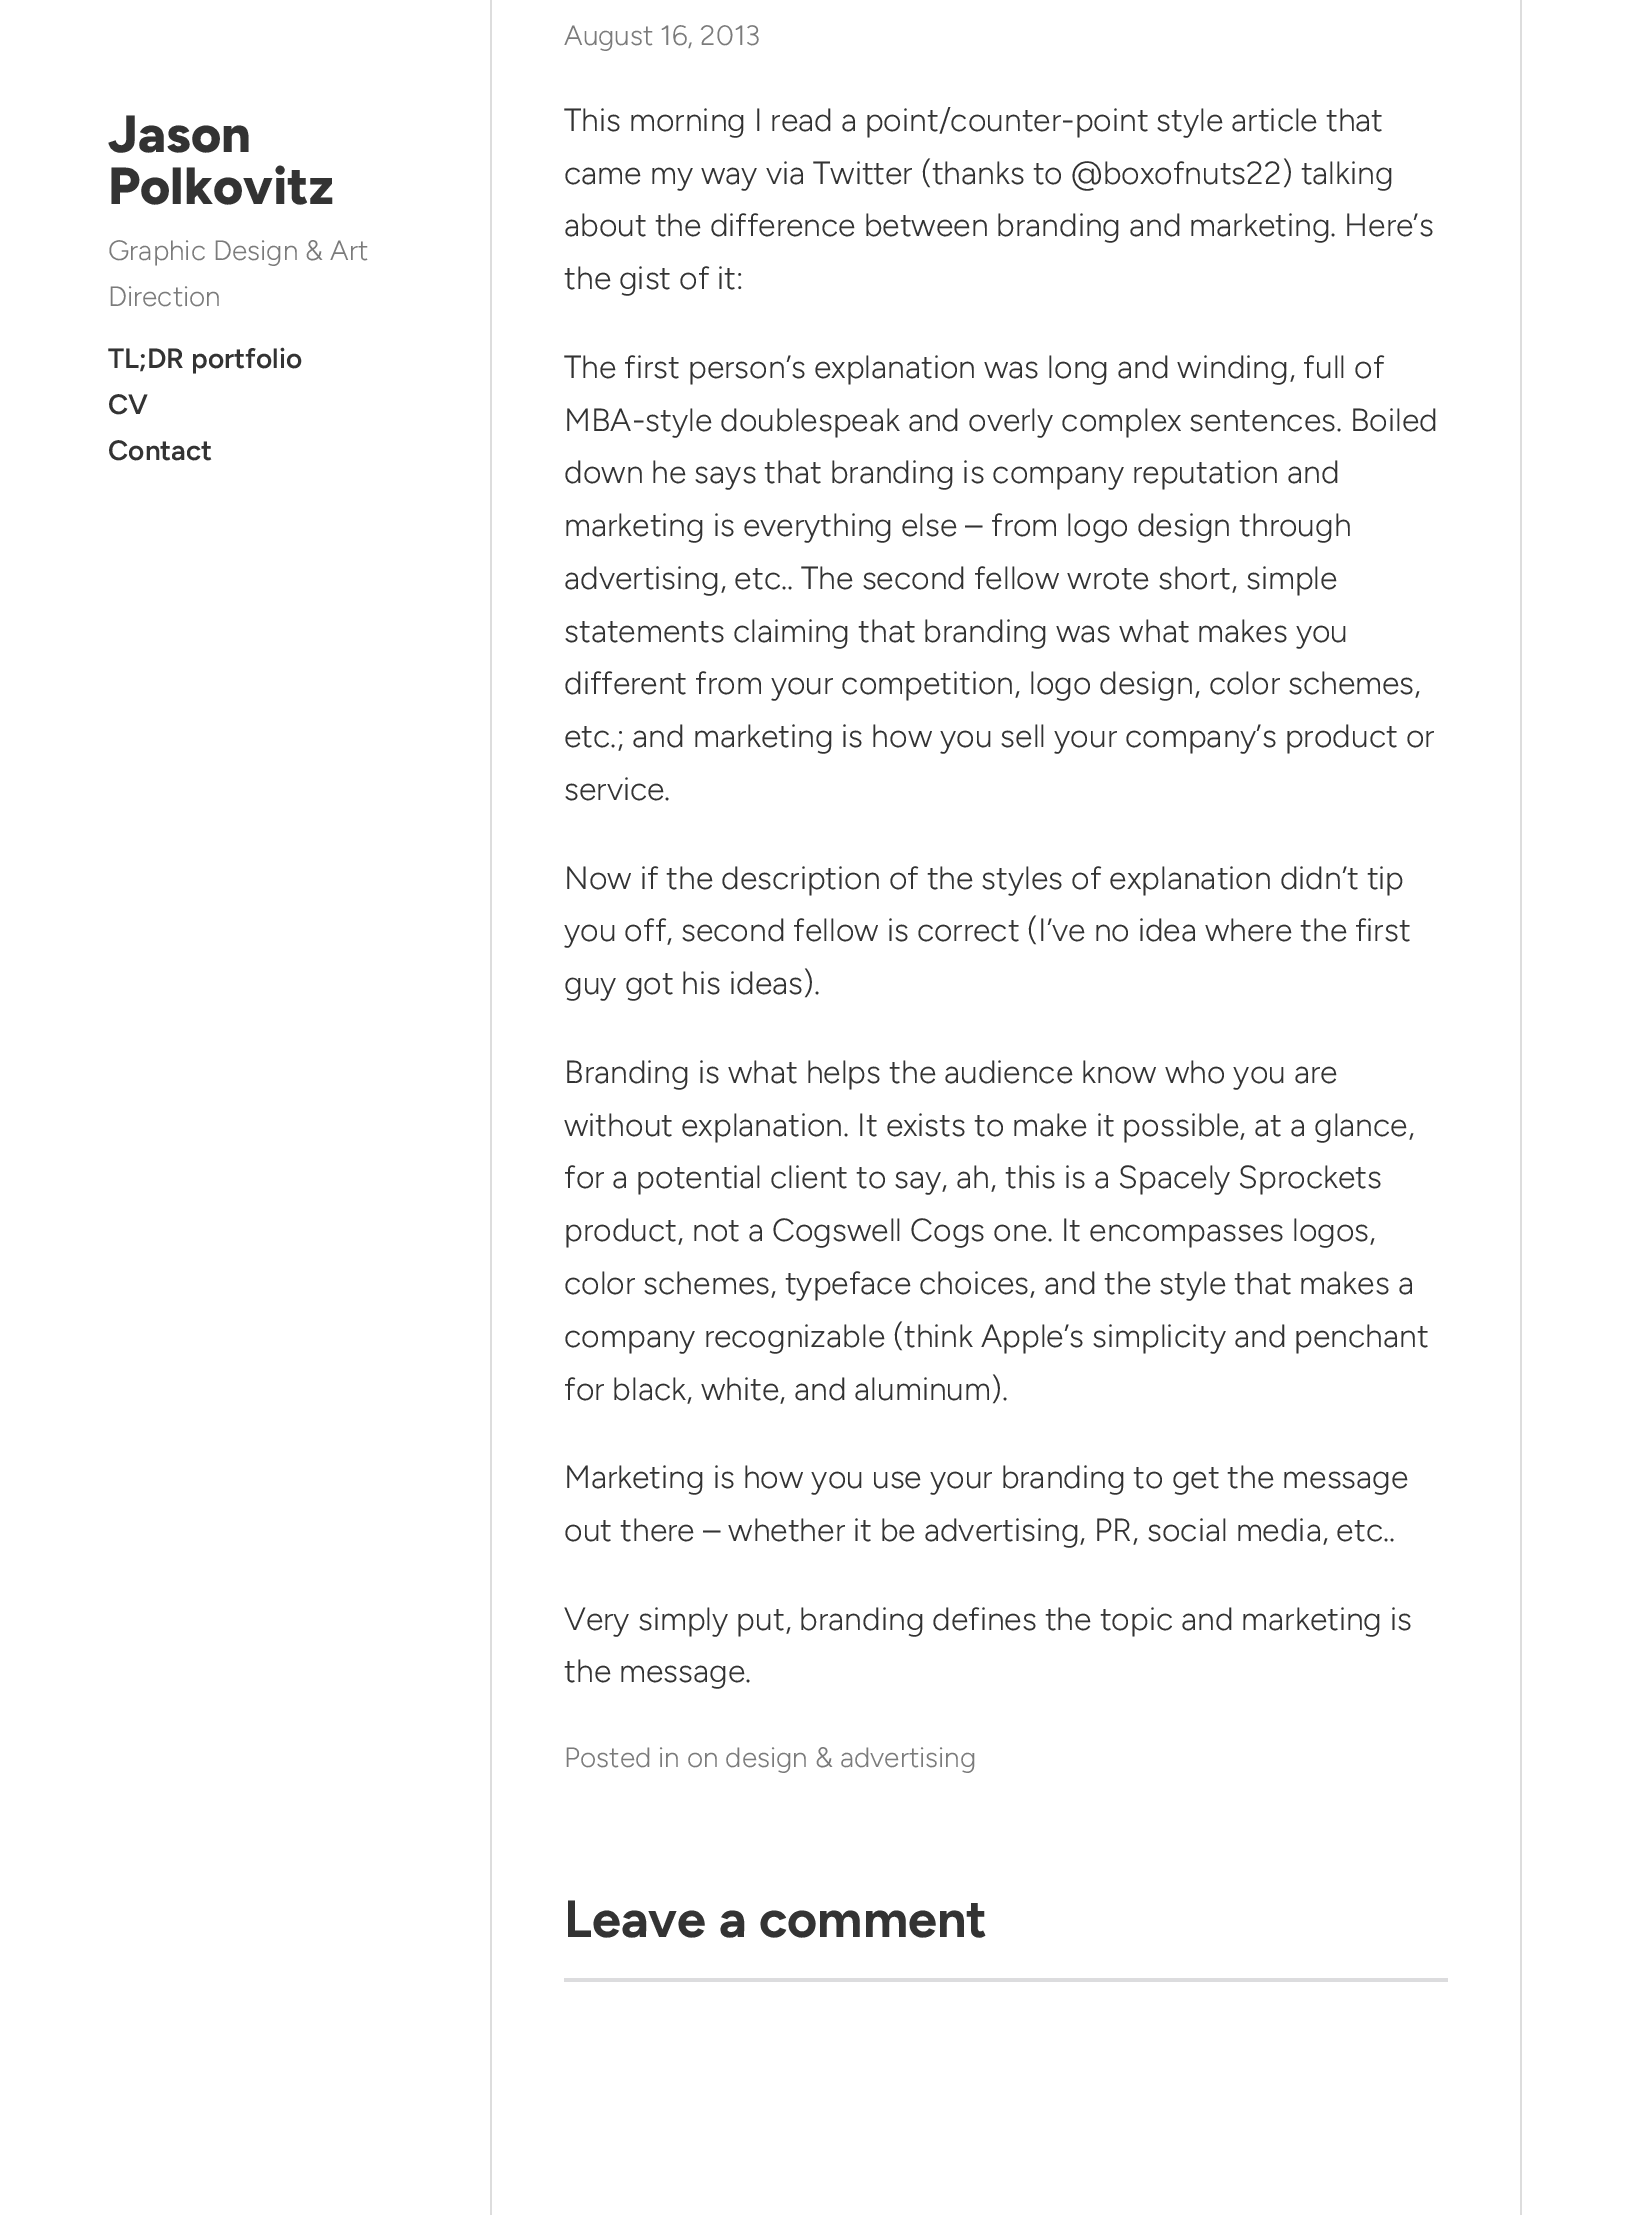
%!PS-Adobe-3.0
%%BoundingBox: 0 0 1630 2215
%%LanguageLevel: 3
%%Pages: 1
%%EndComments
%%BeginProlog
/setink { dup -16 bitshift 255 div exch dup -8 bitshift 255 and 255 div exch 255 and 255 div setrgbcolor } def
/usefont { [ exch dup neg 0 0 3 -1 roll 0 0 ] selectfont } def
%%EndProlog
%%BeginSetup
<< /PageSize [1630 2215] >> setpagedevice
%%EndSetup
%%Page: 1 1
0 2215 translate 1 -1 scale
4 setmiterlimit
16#FFFFFF setink
0 0 1630 2215 rectfill
/Figtree-ExtraBold 52 usefont
16#333333 setink
108 152 moveto (Jason) show
108 204 moveto (Polkovitz) show
/Figtree-Light 28 usefont
16#7B7B7B setink
108 260 moveto (Graphic Design & Art) show
108 306 moveto (Direction) show
/Figtree-SemiBold 28 usefont
16#333333 setink
[
    [(TL;DR portfolio) 108 368]
    [(CV) 108 414]
    [(Contact) 108 460]
] { aload pop moveto show } forall
16#DDDDDD setink
1520 0 2 2215 rectfill
490 0 2 2215 rectfill
/Figtree-Light 28 usefont
16#7B7B7B setink
564 45 moveto (August 16, 2013) show
/Figtree-Light 32 usefont
16#333333 setink
[
    [(This morning I read a point/counter-point style article that) 564 131]
    [(came my way via Twitter \(thanks to @boxofnuts22\) talking) 564 184]
    [(about the difference between branding and marketing. Here’s) 564 236]
    [(the gist of it:) 564 289]
    [(The first person’s explanation was long and winding, full of) 564 378]
    [(MBA-style doublespeak and overly complex sentences. Boiled) 564 431]
    [(down he says that branding is company reputation and) 564 483]
    [(marketing is everything else – from logo design through) 564 536]
    [(advertising, etc.. The second fellow wrote short, simple) 564 589]
    [(statements claiming that branding was what makes you) 564 642]
    [(different from your competition, logo design, color schemes,) 564 694]
    [(etc.; and marketing is how you sell your company’s product or) 564 747]
    [(service.) 564 800]
    [(Now if the description of the styles of explanation didn’t tip) 564 889]
    [(you off, second fellow is correct \(I’ve no idea where the first) 564 941]
    [(guy got his ideas\).) 564 994]
    [(Branding is what helps the audience know who you are) 564 1083]
    [(without explanation. It exists to make it possible, at a glance,) 564 1136]
    [(for a potential client to say, ah, this is a Spacely Sprockets) 564 1188]
    [(product, not a Cogswell Cogs one. It encompasses logos,) 564 1241]
    [(color schemes, typeface choices, and the style that makes a) 564 1294]
    [(company recognizable \(think Apple’s simplicity and penchant) 564 1347]
    [(for black, white, and aluminum\).) 564 1400]
    [(Marketing is how you use your branding to get the message) 564 1488]
    [(out there – whether it be advertising, PR, social media, etc..) 564 1541]
    [(Very simply put, branding defines the topic and marketing is) 564 1630]
    [(the message.) 564 1682]
] { aload pop moveto show } forall
/Figtree-Light 28 usefont
16#7B7B7B setink
564 1767 moveto (Posted in on design & advertising) show
/Figtree-Bold 52 usefont
16#333333 setink
564 1937 moveto (Leave a comment) show
16#DCDCDE setink
564 1978 884 4 rectfill
showpage
%%EOF
